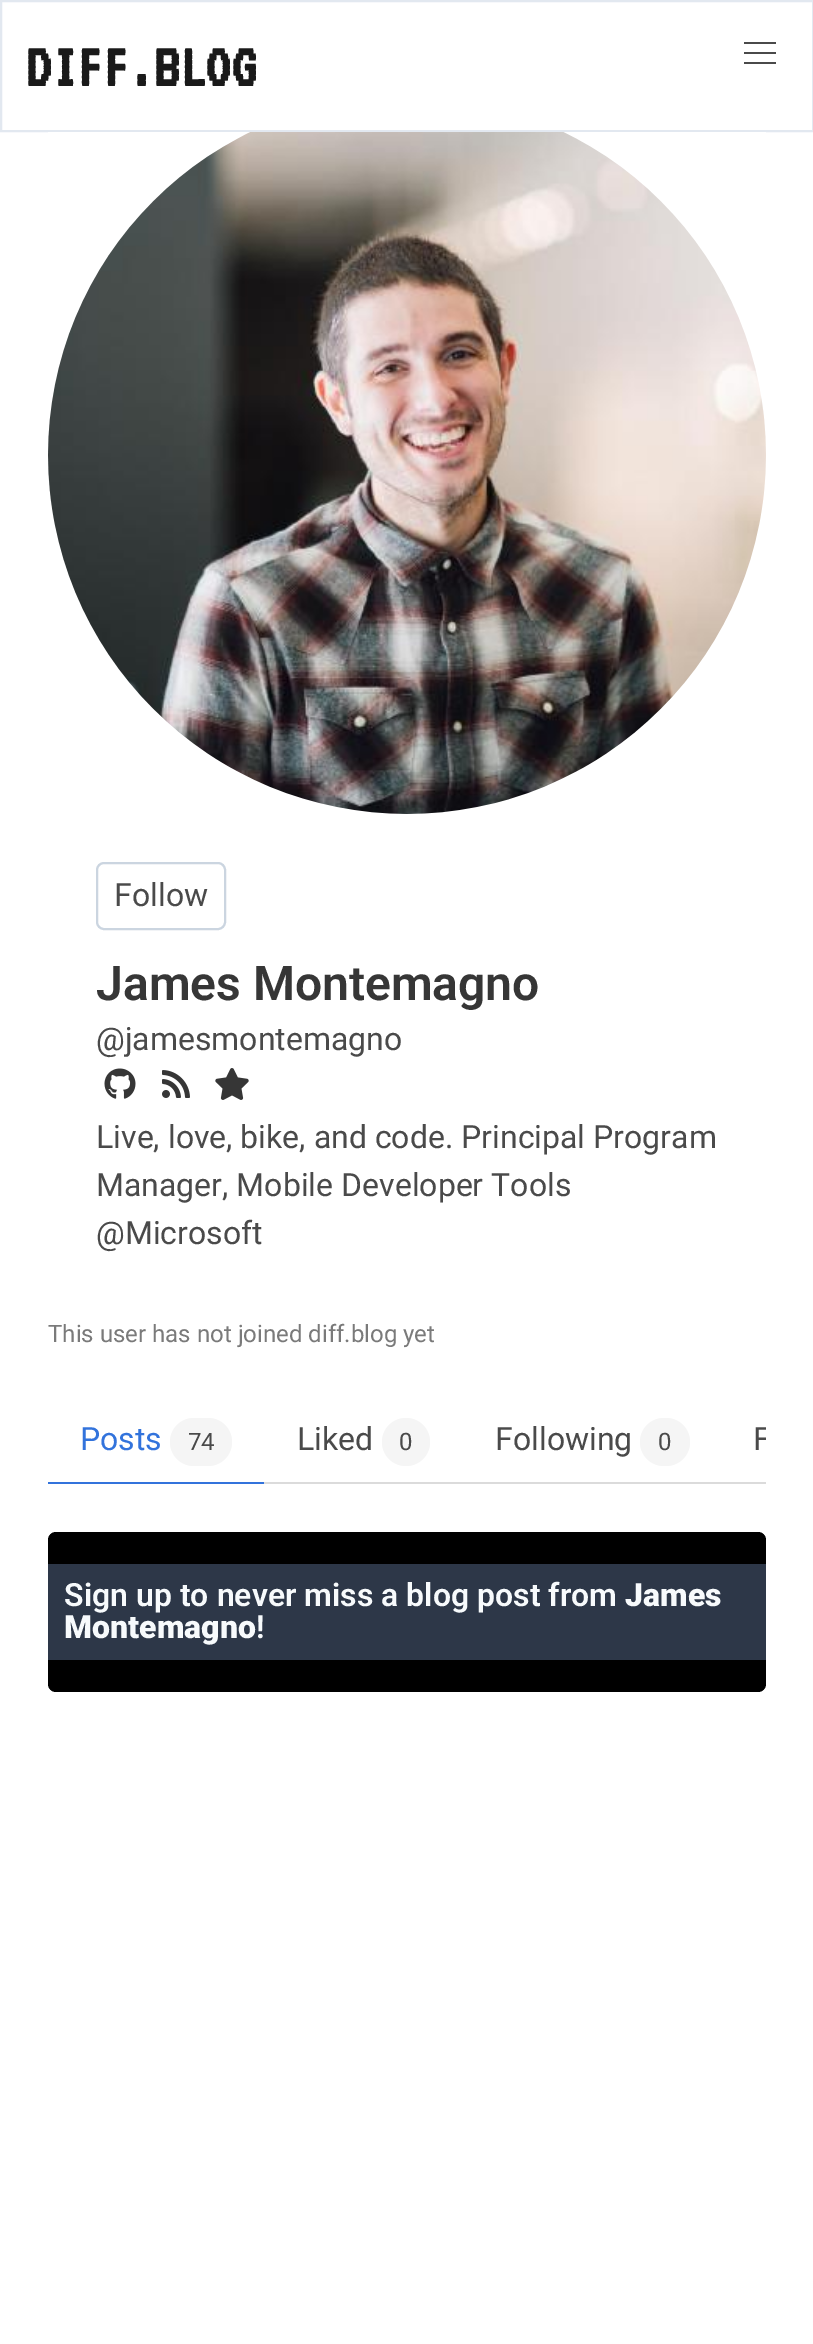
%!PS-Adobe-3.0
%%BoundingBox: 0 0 813 2344
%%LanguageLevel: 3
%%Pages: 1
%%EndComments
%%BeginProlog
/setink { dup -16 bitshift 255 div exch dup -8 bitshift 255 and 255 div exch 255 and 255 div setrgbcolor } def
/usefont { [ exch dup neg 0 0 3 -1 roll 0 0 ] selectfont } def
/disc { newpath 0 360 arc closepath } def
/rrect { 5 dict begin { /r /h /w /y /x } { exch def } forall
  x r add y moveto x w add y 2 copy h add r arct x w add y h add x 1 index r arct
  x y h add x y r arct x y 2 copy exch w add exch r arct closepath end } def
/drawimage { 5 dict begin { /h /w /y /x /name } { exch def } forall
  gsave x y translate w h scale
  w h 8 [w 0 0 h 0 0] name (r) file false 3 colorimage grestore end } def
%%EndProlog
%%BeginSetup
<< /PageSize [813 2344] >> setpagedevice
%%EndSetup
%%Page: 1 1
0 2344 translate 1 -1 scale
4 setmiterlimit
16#FFFFFF setink
0 0 813 2344 rectfill
16#E2E8F0 setink
2 setlinewidth
1 1 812 130 rectstroke
/VT323-Bold 64 usefont
16#1A1A1A setink
26 86 moveto (DIFF.BLOG) show
[
    [744 42 32 2 16#4A4A4A]
    [744 52 32 2 16#4A4A4A]
    [744 62 32 2 16#4A4A4A]
] { aload pop setink rectfill } forall
(img1.raw) 48 132 718 682 drawimage
16#CBD5E0 setink
97 863 128 66 7 rrect stroke
/Roboto-Regular 32 usefont
16#4A4A4A setink
114 906 moveto (Follow) show
/Roboto-SemiBold 48 usefont
16#363636 setink
96 1000 moveto (James Montemagno) show
/Roboto-Regular 32 usefont
16#4A4A4A setink
96 1050 moveto (@jamesmontemagno) show
(img2.raw) 104 1068 32 31 drawimage
(img3.raw) 162 1070 28 28 drawimage
(img4.raw) 215 1068 34 32 drawimage
[
    [(Live, love, bike, and code. Principal Program) 96 1148]
    [(Manager, Mobile Developer Tools) 96 1196]
    [(@Microsoft) 96 1244]
] { aload pop moveto show } forall
/Roboto-Regular 24 usefont
16#7A7A7A setink
48 1342 moveto (This user has not joined diff.blog yet) show
16#DBDBDB setink
264 1482 502 2 rectfill
16#3273DC setink
48 1482 216 2 rectfill
/Roboto-Regular 32 usefont
80 1450 moveto (Posts) show
16#F5F5F5 setink
170 1418 62 48 24 rrect fill
/Roboto-Regular 24 usefont
16#4A4A4A setink
188 1450 moveto (74) show
/Roboto-Regular 32 usefont
297 1450 moveto (Liked) show
16#F5F5F5 setink
406 1442 24 disc fill
/Roboto-Regular 24 usefont
16#4A4A4A setink
399 1450 moveto (0) show
/Roboto-Regular 32 usefont
495 1450 moveto (Following) show
16#F5F5F5 setink
640 1418 50 48 24 rrect fill
/Roboto-Regular 24 usefont
16#4A4A4A setink
658 1450 moveto (0) show
gsave
48 1400 718 84 rectclip
/Roboto-Regular 32 usefont
753 1450 moveto (F) show
grestore
16#000000 setink
48 1532 718 160 8 rrect fill
16#2D3748 setink
48 1564 718 96 rectfill
/Roboto-SemiBold 32 usefont
16#F7FAFC setink
64 1606 moveto (Sign up to never miss a blog post from) show
/Roboto-Black 32 usefont
625 1606 moveto (James) show
64 1638 moveto (Montemagno) show
/Roboto-SemiBold 32 usefont
256 1638 moveto (!) show
showpage
%%EOF
